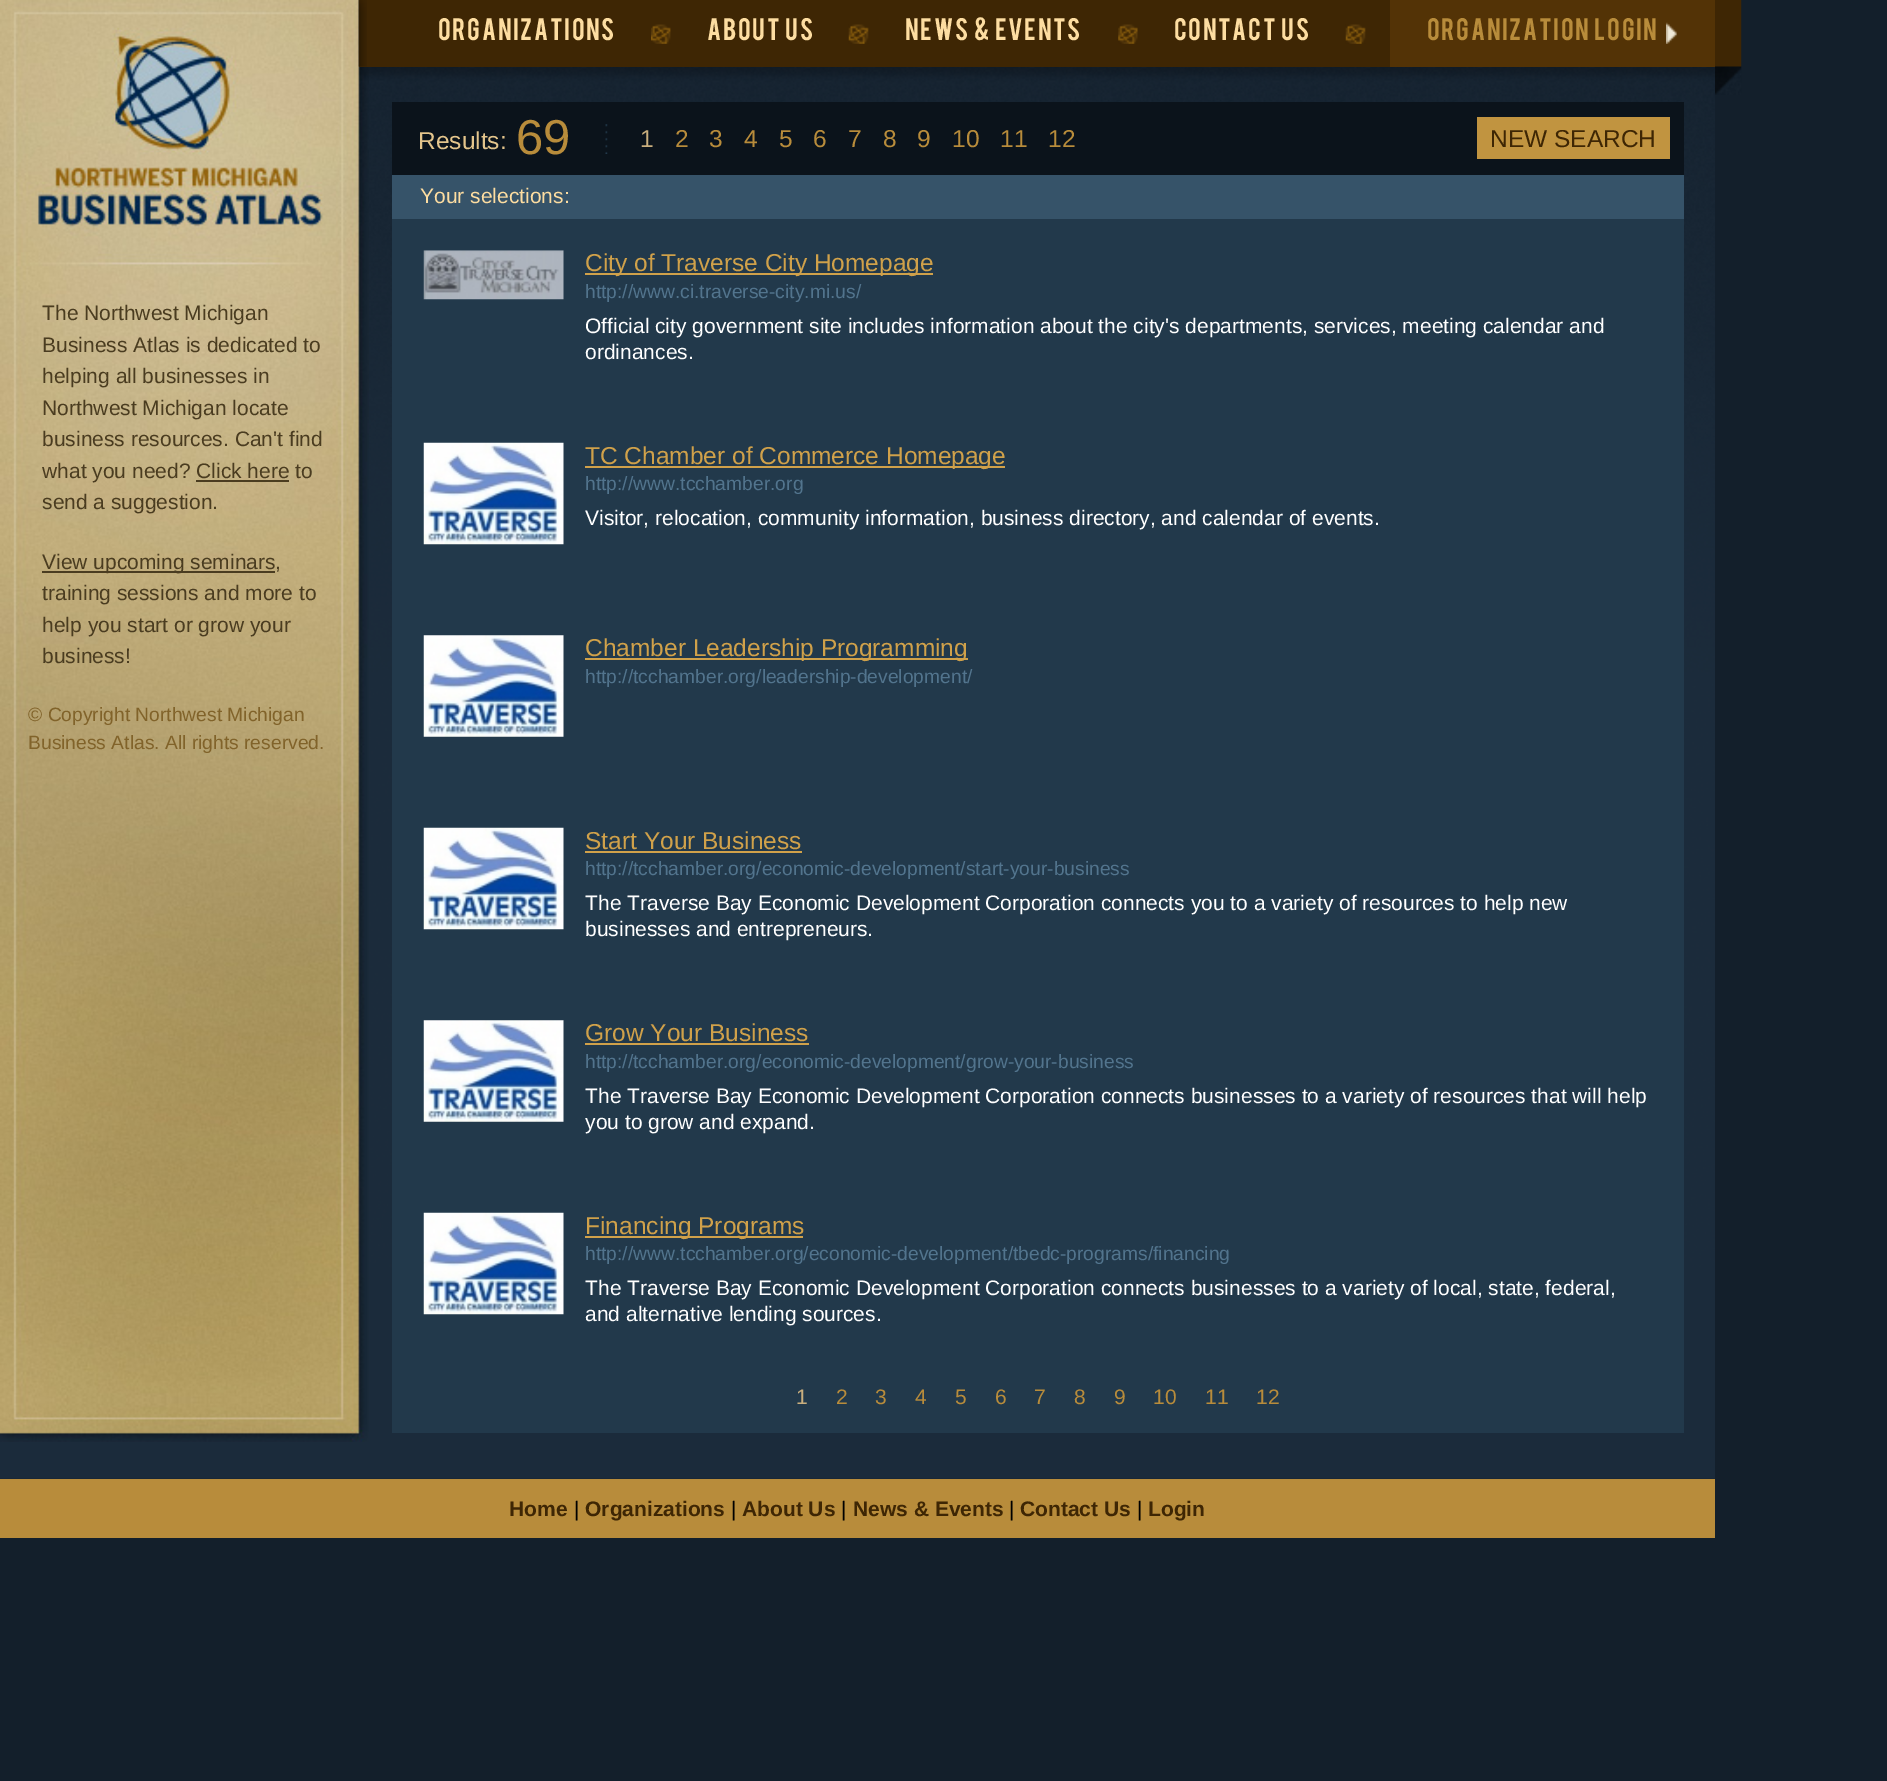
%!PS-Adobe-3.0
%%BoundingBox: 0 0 1887 1781
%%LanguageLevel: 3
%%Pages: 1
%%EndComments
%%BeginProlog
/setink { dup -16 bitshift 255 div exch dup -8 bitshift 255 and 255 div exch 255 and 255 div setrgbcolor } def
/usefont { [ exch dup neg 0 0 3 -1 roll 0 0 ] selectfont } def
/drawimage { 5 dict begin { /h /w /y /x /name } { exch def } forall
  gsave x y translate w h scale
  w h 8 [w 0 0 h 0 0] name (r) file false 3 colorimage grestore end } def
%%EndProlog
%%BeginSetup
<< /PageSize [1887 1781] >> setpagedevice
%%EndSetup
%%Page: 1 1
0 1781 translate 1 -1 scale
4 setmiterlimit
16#131F2B setink
0 0 1887 1781 rectfill
(img1.raw) 0 67 1715 1412 drawimage
(img2.raw) 0 0 369 1442 drawimage
/LiberationSans-Regular 21 usefont
16#4A3C20 setink
[
    [(The Northwest Michigan) 42 320]
    [(Business Atlas is dedicated to) 42 352]
    [(helping all businesses in) 42 383]
    [(Northwest Michigan locate) 42 415]
    [(business resources. Can't find) 42 446]
    [(what you need? Click here to) 42 478]
] { aload pop moveto show } forall
196 480 93 2 rectfill
42 509 moveto (send a suggestion.) show
42 571 233 2 rectfill
[
    [(View upcoming seminars,) 42 569]
    [(training sessions and more to) 42 600]
    [(help you start or grow your) 42 632]
    [(business!) 42 663]
] { aload pop moveto show } forall
/LiberationSans-Regular 19.25 usefont
16#81632A setink
28 721 moveto (© Copyright Northwest Michigan) show
28 749 moveto (Business Atlas. All rights reserved.) show
16#3E2604 setink
359 0 1031 67 rectfill
(img3.raw) 358 0 9 67 drawimage
(img4.raw) 651 24 20 20 drawimage
/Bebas-Regular 24.5 usefont
16#FDDDA1 setink
438 40 moveto 1.75 0 (ORGANIZATIONS) ashow
(img5.raw) 848 24 21 20 drawimage
707 40 moveto 1.75 0 (ABOUT US) ashow
(img6.raw) 1118 24 20 20 drawimage
905 40 moveto 1.75 0 (NEWS & EVENTS) ashow
(img7.raw) 1345 24 21 20 drawimage
1174 40 moveto 1.75 0 (CONTACT US) ashow
16#533306 setink
1390 0 325 67 rectfill
(img8.raw) 1666 22 11 22 drawimage
16#B88C3B setink
1427 40 moveto 1.75 0 (ORGANIZATION LOGIN) ashow
(img9.raw) 1715 0 27 95 drawimage
16#22394B setink
392 219 1292 1214 rectfill
16#0B131B setink
392 102 1292 73 rectfill
/LiberationSans-Regular 24.5 usefont
16#E4C58C setink
418 149 moveto (Results:) show
/LiberationSans-Regular 49 usefont
16#B88C3B setink
516 154 moveto (69) show
(img10.raw) 605 124 3 30 drawimage
/LiberationSans-Regular 24.5 usefont
16#CAAF7E setink
640 147 moveto (1) show
16#B88C3B setink
[
    [(2) 675 147]
    [(3) 709 147]
    [(4) 744 147]
    [(5) 779 147]
    [(6) 813 147]
    [(7) 848 147]
    [(8) 883 147]
    [(9) 917 147]
    [(10) 952 147]
    [(11) 1000 147]
    [(12) 1048 147]
] { aload pop moveto show } forall
16#C19440 setink
1477 117 193 42 rectfill
16#3E2604 setink
1490 147 moveto (NEW SEARCH) show
16#365369 setink
392 175 1292 44 rectfill
/LiberationSans-Regular 21 usefont
16#FDDDA1 setink
420 203 moveto (Your selections:) show
(img11.raw) 423 250 141 50 drawimage
16#D0A14A setink
585 273 348 2 rectfill
/LiberationSans-Regular 24.5 usefont
585 271 moveto (City of Traverse City Homepage) show
/LiberationSans-Regular 19.25 usefont
16#52748D setink
585 298 moveto (http://www.ci.traverse-city.mi.us/) show
/LiberationSans-Regular 21 usefont
16#FFFFFF setink
585 333 moveto (Official city government site includes information about the city's departments, services, meeting calendar and) show
585 359 moveto (ordinances.) show
(img12.raw) 423 442 141 103 drawimage
16#D0A14A setink
585 466 420 2 rectfill
/LiberationSans-Regular 24.5 usefont
585 464 moveto (TC Chamber of Commerce Homepage) show
/LiberationSans-Regular 19.25 usefont
16#52748D setink
585 490 moveto (http://www.tcchamber.org) show
/LiberationSans-Regular 21 usefont
16#FFFFFF setink
585 525 moveto (Visitor, relocation, community information, business directory, and calendar of events.) show
(img13.raw) 423 635 141 102 drawimage
16#D0A14A setink
585 658 383 2 rectfill
/LiberationSans-Regular 24.5 usefont
585 656 moveto (Chamber Leadership Programming) show
/LiberationSans-Regular 19.25 usefont
16#52748D setink
585 683 moveto (http://tcchamber.org/leadership-development/) show
(img12.raw) 423 827 141 103 drawimage
/LiberationSans-Regular 24.5 usefont
16#D0A14A setink
585 849 moveto (Start Your Business) show
585 851 217 2 rectfill
/LiberationSans-Regular 19.25 usefont
16#52748D setink
585 875 moveto (http://tcchamber.org/economic-development/start-your-business) show
/LiberationSans-Regular 21 usefont
16#FFFFFF setink
585 910 moveto (The Traverse Bay Economic Development Corporation connects you to a variety of resources to help new) show
585 936 moveto (businesses and entrepreneurs.) show
(img13.raw) 423 1020 141 102 drawimage
/LiberationSans-Regular 24.5 usefont
16#D0A14A setink
585 1041 moveto (Grow Your Business) show
585 1043 224 2 rectfill
/LiberationSans-Regular 19.25 usefont
16#52748D setink
585 1068 moveto (http://tcchamber.org/economic-development/grow-your-business) show
/LiberationSans-Regular 21 usefont
16#FFFFFF setink
585 1103 moveto (The Traverse Bay Economic Development Corporation connects businesses to a variety of resources that will help) show
585 1129 moveto (you to grow and expand.) show
(img12.raw) 423 1212 141 103 drawimage
16#D0A14A setink
585 1236 218 2 rectfill
/LiberationSans-Regular 24.5 usefont
585 1234 moveto (Financing Programs) show
/LiberationSans-Regular 19.25 usefont
16#52748D setink
585 1260 moveto (http://www.tcchamber.org/economic-development/tbedc-programs/financing) show
/LiberationSans-Regular 21 usefont
16#FFFFFF setink
585 1295 moveto (The Traverse Bay Economic Development Corporation connects businesses to a variety of local, state, federal,) show
585 1321 moveto (and alternative lending sources.) show
16#CAAF7E setink
796 1404 moveto (1) show
16#B88C3B setink
[
    [(2) 836 1404]
    [(3) 875 1404]
    [(4) 915 1404]
    [(5) 955 1404]
    [(6) 995 1404]
    [(7) 1034 1404]
    [(8) 1074 1404]
    [(9) 1114 1404]
    [(10) 1153 1404]
    [(11) 1205 1404]
    [(12) 1256 1404]
] { aload pop moveto show } forall
0 1479 1715 59 rectfill
/LiberationSans-Bold 21 usefont
16#3E2604 setink
509 1516 moveto (Home) show
/LiberationSans-Regular 21 usefont
16#000000 setink
574 1516 moveto (|) show
/LiberationSans-Bold 21 usefont
16#3E2604 setink
585 1516 moveto (Organizations) show
/LiberationSans-Regular 21 usefont
16#000000 setink
731 1516 moveto (|) show
/LiberationSans-Bold 21 usefont
16#3E2604 setink
742 1516 moveto (About Us) show
/LiberationSans-Regular 21 usefont
16#000000 setink
841 1516 moveto (|) show
/LiberationSans-Bold 21 usefont
16#3E2604 setink
853 1516 moveto (News & Events) show
/LiberationSans-Regular 21 usefont
16#000000 setink
1009 1516 moveto (|) show
/LiberationSans-Bold 21 usefont
16#3E2604 setink
1020 1516 moveto (Contact Us) show
/LiberationSans-Regular 21 usefont
16#000000 setink
1137 1516 moveto (|) show
/LiberationSans-Bold 21 usefont
16#3E2604 setink
1148 1516 moveto (Login) show
showpage
%%EOF
